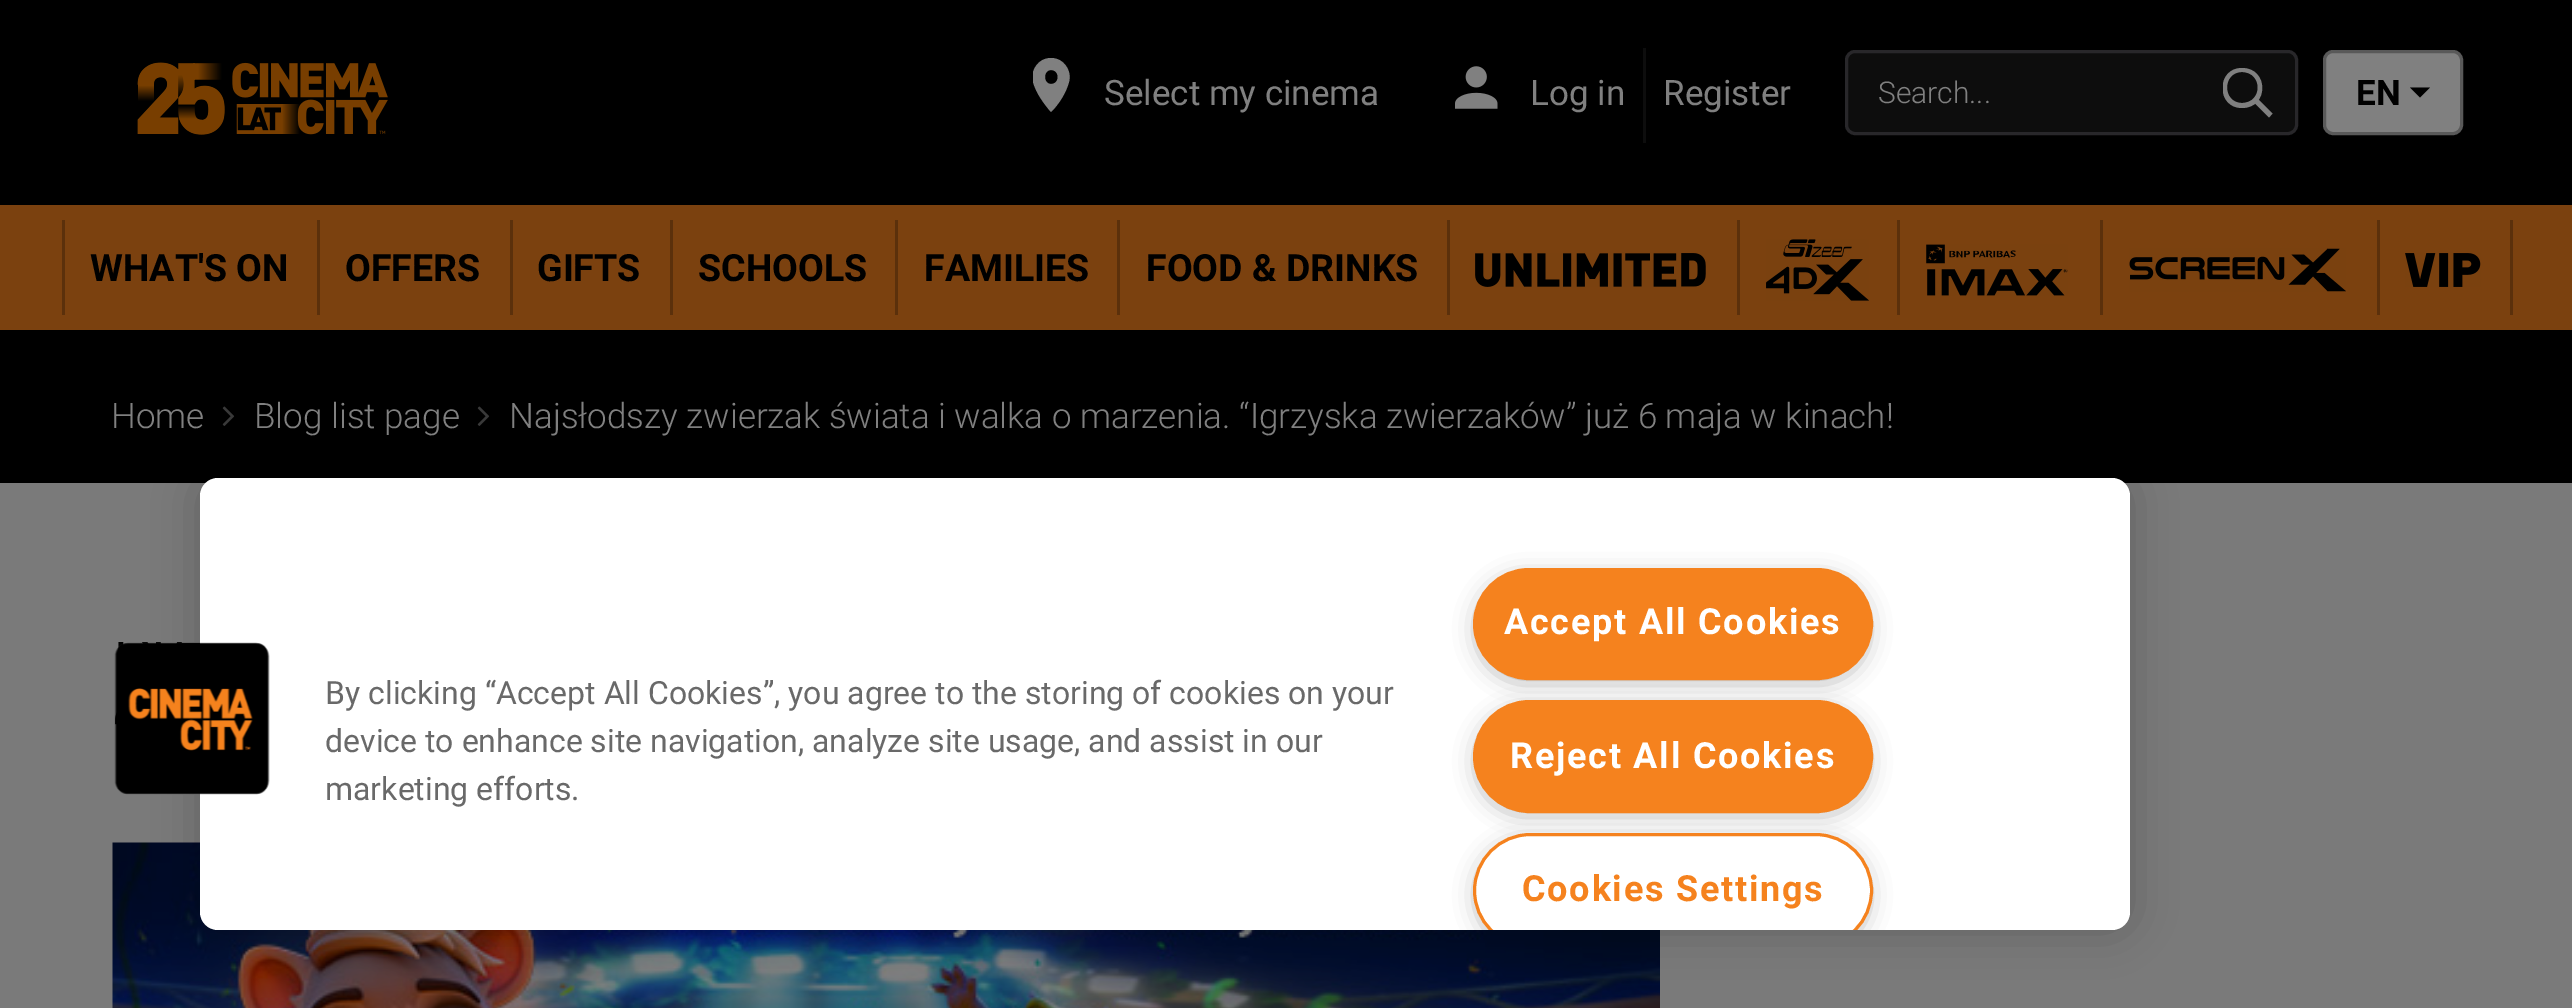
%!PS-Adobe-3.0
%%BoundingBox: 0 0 2572 1008
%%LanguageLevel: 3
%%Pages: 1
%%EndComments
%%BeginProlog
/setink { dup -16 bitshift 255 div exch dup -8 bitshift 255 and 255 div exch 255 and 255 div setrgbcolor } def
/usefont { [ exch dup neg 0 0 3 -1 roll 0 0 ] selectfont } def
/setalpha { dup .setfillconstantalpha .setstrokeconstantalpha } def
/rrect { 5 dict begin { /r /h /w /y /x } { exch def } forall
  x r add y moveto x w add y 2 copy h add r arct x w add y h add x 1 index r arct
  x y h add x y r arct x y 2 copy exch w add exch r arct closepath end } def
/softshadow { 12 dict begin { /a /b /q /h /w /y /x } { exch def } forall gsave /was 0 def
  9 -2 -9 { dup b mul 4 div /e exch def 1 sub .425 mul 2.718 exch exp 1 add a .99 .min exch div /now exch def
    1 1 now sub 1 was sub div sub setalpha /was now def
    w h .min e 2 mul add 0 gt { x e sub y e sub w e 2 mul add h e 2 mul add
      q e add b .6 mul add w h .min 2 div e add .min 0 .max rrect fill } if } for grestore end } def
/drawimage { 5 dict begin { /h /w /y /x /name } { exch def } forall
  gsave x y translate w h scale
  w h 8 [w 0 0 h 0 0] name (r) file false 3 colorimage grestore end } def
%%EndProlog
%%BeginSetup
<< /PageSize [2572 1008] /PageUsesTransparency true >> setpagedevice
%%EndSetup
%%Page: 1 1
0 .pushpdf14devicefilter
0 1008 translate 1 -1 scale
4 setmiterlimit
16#000000 setink
0 0 2572 1008 rectfill
(img1.raw) 137 62 251 73 drawimage
gsave
1033 58 37 55 rectclip
16#808080 setink
1051 84 moveto 1043 84 1043 70 1051 70 curveto 1060 70 1060 84 1051 84 curveto closepath 1051 58 moveto 1038 58 1030 71 1033 82 curveto 1036 93 1044 104 1051 112 curveto 1059 104 1066 93 1069 82 curveto 1072 71 1064 58 1051 58 curveto closepath fill
grestore
/Roboto-Regular 35 usefont
16#808080 setink
1104 105 moveto (Select my cinema) show
16#0D0D0D setink
1643 48 3 95 rectfill
(img2.raw) 1455 66 43 43 drawimage
16#808080 setink
1530 105 moveto (Log in) show
1663 105 moveto (Register) show
16#0D0D0D setink
1846.5 51.5 450 82 8.5 rrect gsave fill grestore
16#28272A setink
3 setlinewidth
stroke
/Roboto-Light 30 usefont
16#808080 setink
1878 103 moveto (Search...) show
gsave
2223 68 50 50 rectclip
2242 68 moveto 2216 68 2216 108 2242 108 curveto 2269 108 2269 68 2242 68 curveto closepath 2242 103 moveto 2222 103 2222 72 2242 72 curveto 2263 72 2263 103 2242 103 curveto closepath eofill
grestore
2258 99 moveto 2272.5 113.5 lineto 2269 117.5 lineto 2254.5 103 lineto closepath eofill
2324.5 51.5 137 82 8.5 rrect gsave fill grestore
16#595959 setink
stroke
/Roboto-Bold 35 usefont
16#000000 setink
2356 105 moveto (EN) show
2410 87.5 moveto 2430 87.5 lineto 2420 97.5 lineto closepath fill
16#7B410F setink
0 205 2572 125 rectfill
16#5B300B setink
62 220 3 95 rectfill
/Roboto-Bold 37.5 usefont
16#000000 setink
90 281 moveto (WHAT'S ON) show
16#5B300B setink
317 220 3 95 rectfill
16#000000 setink
345 281 moveto (OFFERS) show
16#5B300B setink
510 220 3 95 rectfill
16#000000 setink
537 281 moveto (GIFTS) show
16#5B300B setink
670 220 3 95 rectfill
16#000000 setink
698 281 moveto (SCHOOLS) show
16#5B300B setink
895 220 3 95 rectfill
16#000000 setink
924 281 moveto (FAMILIES) show
16#5B300B setink
1117 220 3 95 rectfill
16#000000 setink
1146 281 moveto (FOOD & DRINKS) show
16#5B300B setink
1447 220 3 95 rectfill
(img3.raw) 1475 253 231 34 drawimage
1737 220 3 95 rectfill
(img4.raw) 1766 239 103 62 drawimage
1897 220 3 95 rectfill
(img5.raw) 1926 244 142 52 drawimage
2100 220 3 95 rectfill
(img6.raw) 2129 248 217 44 drawimage
2377 220 3 95 rectfill
(img7.raw) 2405 253 76 34 drawimage
2510 220 3 95 rectfill
/Roboto-Light 35 usefont
16#808080 setink
111 428 moveto (Home) show
(img8.raw) 222 406 13 20 drawimage
254 428 moveto (Blog list page) show
(img8.raw) 477 406 13 20 drawimage
509 428 moveto (Najsłodszy zwierzak świata i walka o marzenia. “Igrzyska zwierzaków” już 6 maja w kinach!) show
16#7A7A7A setink
0 483 2572 525 rectfill
(img9.raw) 112 842 1548 166 drawimage
16#000000 setink
200 478 1930 452 18 22.5 0.2 softshadow
16#FFFFFF setink
200 478 1930 452 18 rrect fill
(img10.raw) 114 642 156 153 drawimage
/Roboto-Regular 32 usefont
16#696969 setink
[
    [(By clicking “Accept All Cookies”, you agree to the storing of cookies on your) 325 704]
    [(device to enhance site navigation, analyze site usage, and assist in our) 325 752]
    [(marketing efforts.) 325 800]
] { aload pop moveto show } forall
16#999999 setink
1480 580 385 98 49 12.5 1 softshadow
16#F5821E setink
1474.5 569.5 397 109 54.5 rrect gsave fill grestore
stroke
/Roboto-Bold 36 usefont
16#FFFFFF setink
1504 634 moveto 1.75 0 (Accept All Cookies) ashow
16#999999 setink
1480 713 385 97 48.5 12.5 1 softshadow
16#F5821E setink
1474.5 701.5 397 110 55 rrect gsave fill grestore
stroke
16#FFFFFF setink
1510 768 moveto 1.75 0 (Reject All Cookies) ashow
gsave
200 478 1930 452 rectclip
16#999999 setink
1480 845 385 100 50 12.5 1 softshadow
grestore
gsave
200 478 1930 452 rectclip
1474.5 834.5 397 112 56 rrect gsave fill grestore
16#F5821E setink
stroke
grestore
16#F5821E setink
1522 901 moveto 1.75 0 (Cookies Settings) ashow
.poppdf14devicefilter showpage
%%EOF
